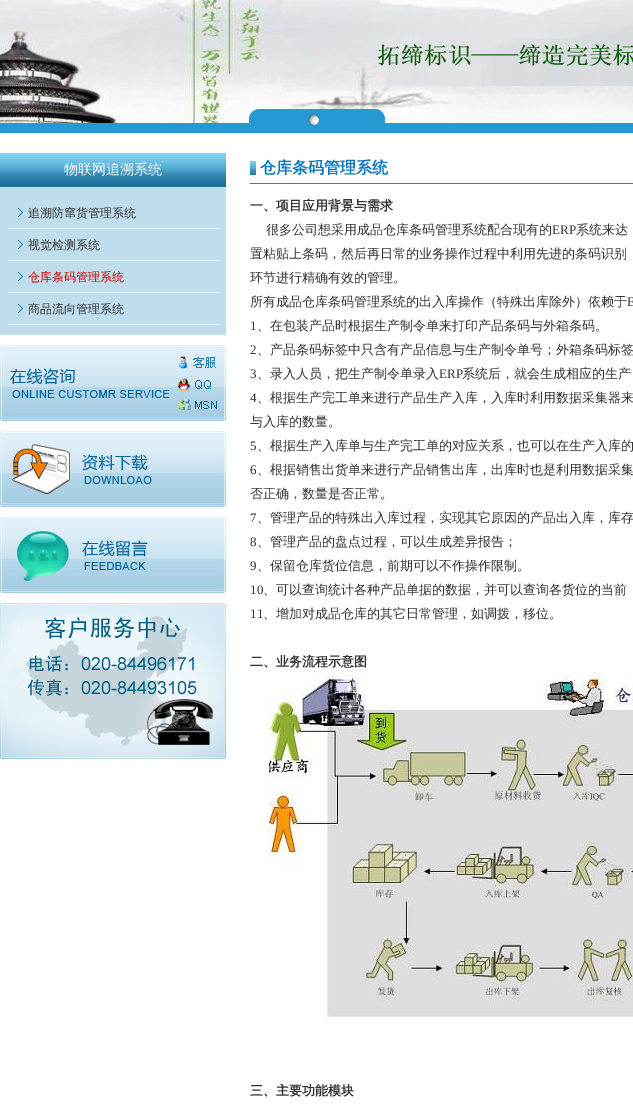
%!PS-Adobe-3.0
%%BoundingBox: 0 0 633 1114
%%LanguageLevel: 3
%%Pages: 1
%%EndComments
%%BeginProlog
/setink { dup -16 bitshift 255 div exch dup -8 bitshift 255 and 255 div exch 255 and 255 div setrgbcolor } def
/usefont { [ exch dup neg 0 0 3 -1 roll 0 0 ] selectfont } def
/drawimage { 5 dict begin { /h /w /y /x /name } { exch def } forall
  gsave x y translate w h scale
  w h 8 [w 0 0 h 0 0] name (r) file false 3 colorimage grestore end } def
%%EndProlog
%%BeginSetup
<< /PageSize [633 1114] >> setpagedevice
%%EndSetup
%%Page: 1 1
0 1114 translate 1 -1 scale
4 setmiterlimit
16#FFFFFF setink
0 0 633 1114 rectfill
(img1.raw) 0 0 633 123 drawimage
16#2698D3 setink
0 123 633 10 rectfill
(img2.raw) 249 109 136 14 drawimage
(img3.raw) 308 114 12 12 drawimage
(img4.raw) 0 153 226 34 drawimage
/WenQuanYiZenHei-Medium 14 usefont
16#FFFFFF setink
64 174 moveto (物联网追溯系统) show
16#C0DDED setink
0 187 226 148 rectfill
(img5.raw) 8 207 210 22 drawimage
/WenQuanYiZenHei-Medium 12 usefont
16#333333 setink
28 217 moveto (追溯防窜货管理系统) show
(img5.raw) 8 239 210 22 drawimage
28 249 moveto (视觉检测系统) show
(img5.raw) 8 271 210 22 drawimage
16#CC0000 setink
28 281 moveto (仓库条码管理系统) show
(img5.raw) 8 303 210 22 drawimage
16#333333 setink
28 313 moveto (商品流向管理系统) show
(img6.raw) 0 345 226 76 drawimage
(img7.raw) 0 431 226 76 drawimage
(img8.raw) 0 517 226 76 drawimage
(img9.raw) 0 603 226 156 drawimage
(img10.raw) 250 161 6 14 drawimage
16#188AD1 setink
250 183 383 1 rectfill
/WenQuanYiZenHei-Bold 16 usefont
16#0777BF setink
260 173 moveto (仓库条码管理系统) show
/WenQuanYiZenHei-Bold 13 usefont
16#333333 setink
250 210 moveto (一、项目应用背景与需求) show
/WenQuanYiZenHei-Medium 13 usefont
266 234 moveto (很多公司想采用成品仓库条码管理系统配合现有的) show
/LiberationSerif-Regular 13 usefont
552 234 moveto (ERP) show
/WenQuanYiZenHei-Medium 13 usefont
[
    [(系统来达) 576 234]
    [(置粘贴上条码，然后再日常的业务操作过程中利用先进的条码识别) 250 258]
    [(环节进行精确有效的管理。) 250 282]
    [(所有成品仓库条码管理系统的出入库操作（特殊出库除外）依赖于) 250 306]
] { aload pop moveto show } forall
/LiberationSerif-Regular 13 usefont
627 306 moveto (E) show
250 330 moveto (1) show
/WenQuanYiZenHei-Medium 13 usefont
257 330 moveto (、在包装产品时根据生产制令单来打印产品条码与外箱条码。) show
/LiberationSerif-Regular 13 usefont
250 354 moveto (2) show
/WenQuanYiZenHei-Medium 13 usefont
257 354 moveto (、产品条码标签中只含有产品信息与生产制令单号；外箱条码标签) show
/LiberationSerif-Regular 13 usefont
250 378 moveto (3) show
/WenQuanYiZenHei-Medium 13 usefont
257 378 moveto (、录入人员，把生产制令单录入) show
/LiberationSerif-Regular 13 usefont
439 378 moveto (ERP) show
/WenQuanYiZenHei-Medium 13 usefont
462 378 moveto (系统后，就会生成相应的生产) show
/LiberationSerif-Regular 13 usefont
250 402 moveto (4) show
/WenQuanYiZenHei-Medium 13 usefont
257 402 moveto (、根据生产完工单来进行产品生产入库，入库时利用数据采集器来) show
250 426 moveto (与入库的数量。) show
/LiberationSerif-Regular 13 usefont
250 450 moveto (5) show
/WenQuanYiZenHei-Medium 13 usefont
257 450 moveto (、根据生产入库单与生产完工单的对应关系，也可以在生产入库的) show
/LiberationSerif-Regular 13 usefont
250 474 moveto (6) show
/WenQuanYiZenHei-Medium 13 usefont
257 474 moveto (、根据销售出货单来进行产品销售出库，出库时也是利用数据采集) show
250 498 moveto (否正确，数量是否正常。) show
/LiberationSerif-Regular 13 usefont
250 522 moveto (7) show
/WenQuanYiZenHei-Medium 13 usefont
257 522 moveto (、管理产品的特殊出入库过程，实现其它原因的产品出入库，库存) show
/LiberationSerif-Regular 13 usefont
250 546 moveto (8) show
/WenQuanYiZenHei-Medium 13 usefont
257 546 moveto (、管理产品的盘点过程，可以生成差异报告；) show
/LiberationSerif-Regular 13 usefont
250 570 moveto (9) show
/WenQuanYiZenHei-Medium 13 usefont
257 570 moveto (、保留仓库货位信息，前期可以不作操作限制。) show
/LiberationSerif-Regular 13 usefont
250 594 moveto (10) show
/WenQuanYiZenHei-Medium 13 usefont
263 594 moveto (、可以查询统计各种产品单据的数据，并可以查询各货位的当前) show
/LiberationSerif-Regular 13 usefont
250 618 moveto (11) show
/WenQuanYiZenHei-Medium 13 usefont
263 618 moveto (、增加对成品仓库的其它日常管理，如调拨，移位。) show
/WenQuanYiZenHei-Bold 13 usefont
250 666 moveto (二、业务流程示意图) show
(img11.raw) 269 674 364 344 drawimage
250 1095 moveto (三、主要功能模块) show
showpage
%%EOF
